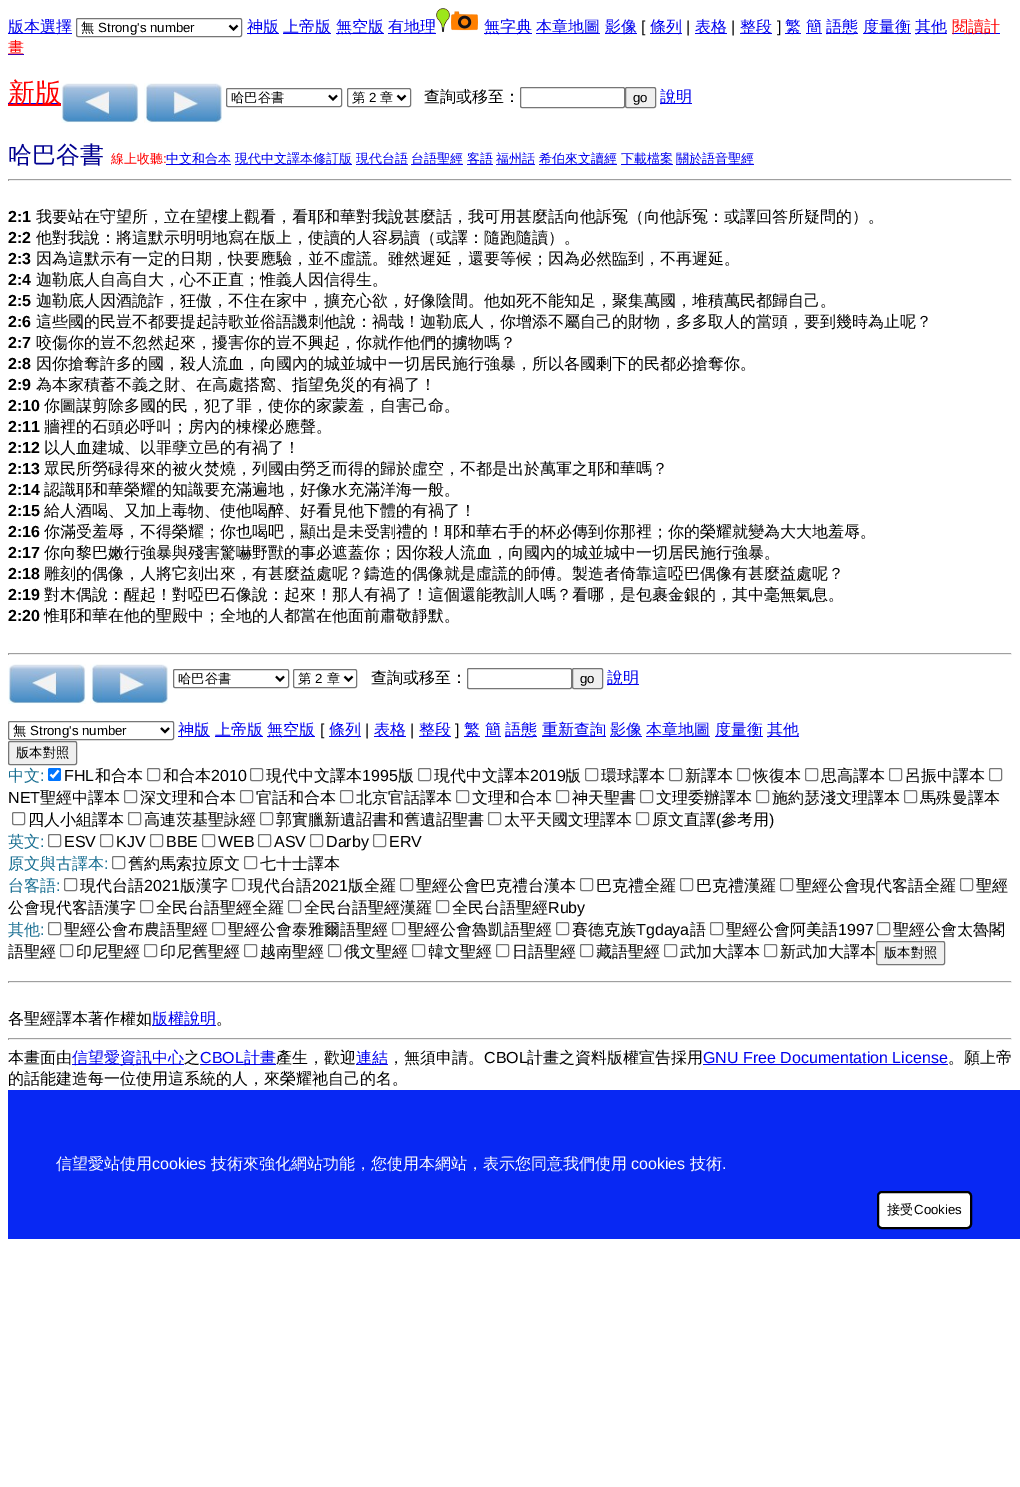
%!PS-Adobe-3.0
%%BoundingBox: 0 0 1020 1487
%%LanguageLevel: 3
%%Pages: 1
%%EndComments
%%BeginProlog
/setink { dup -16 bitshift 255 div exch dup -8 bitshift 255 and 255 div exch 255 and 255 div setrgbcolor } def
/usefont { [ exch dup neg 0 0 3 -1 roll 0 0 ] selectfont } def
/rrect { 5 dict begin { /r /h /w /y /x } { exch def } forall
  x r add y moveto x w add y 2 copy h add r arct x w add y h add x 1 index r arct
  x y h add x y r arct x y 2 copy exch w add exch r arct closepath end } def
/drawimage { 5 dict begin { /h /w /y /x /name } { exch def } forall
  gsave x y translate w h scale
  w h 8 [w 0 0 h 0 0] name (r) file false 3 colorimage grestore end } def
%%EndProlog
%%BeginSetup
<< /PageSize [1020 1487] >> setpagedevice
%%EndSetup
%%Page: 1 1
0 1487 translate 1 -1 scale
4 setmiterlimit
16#FFFFFF setink
0 0 1020 1487 rectfill
16#0000EE setink
8 33 64 1 rectfill
/WenQuanYiZenHei-Medium 16 usefont
8 32 moveto (版本選擇) show
16#767676 setink
76.5 18.5 165 18 1.5 rrect stroke
16#000000 setink
2 setlinewidth
229.5 25.5 moveto 233.5 29.5 lineto 237.5 25.5 lineto stroke
/WenQuanYiZenHei-Medium 13.25 usefont
81 32 moveto (無) show
/LiberationSans-Regular 13.25 usefont
98 32 moveto (Strong's number) show
16#0000EE setink
247 33 32 1 rectfill
/WenQuanYiZenHei-Medium 16 usefont
247 32 moveto (神版) show
283 33 48 1 rectfill
283 32 moveto (上帝版) show
336 33 48 1 rectfill
336 32 moveto (無空版) show
388 33 48 1 rectfill
388 32 moveto (有地理) show
(img1.raw) 436 8 14 24 drawimage
(img2.raw) 451 11 27 20 drawimage
484 33 48 1 rectfill
484 32 moveto (無字典) show
536 33 64 1 rectfill
536 32 moveto (本章地圖) show
605 33 32 1 rectfill
605 32 moveto (影像) show
/LiberationSans-Regular 16 usefont
16#000000 setink
641 32 moveto ([) show
16#0000EE setink
650 33 32 1 rectfill
/WenQuanYiZenHei-Medium 16 usefont
650 32 moveto (條列) show
/LiberationSans-Regular 16 usefont
16#000000 setink
686 32 moveto (|) show
16#0000EE setink
695 33 32 1 rectfill
/WenQuanYiZenHei-Medium 16 usefont
695 32 moveto (表格) show
/LiberationSans-Regular 16 usefont
16#000000 setink
731 32 moveto (|) show
16#0000EE setink
740 33 32 1 rectfill
/WenQuanYiZenHei-Medium 16 usefont
740 32 moveto (整段) show
/LiberationSans-Regular 16 usefont
16#000000 setink
777 32 moveto (]) show
16#0000EE setink
785 33 16 1 rectfill
/WenQuanYiZenHei-Medium 16 usefont
785 32 moveto (繁) show
806 33 16 1 rectfill
806 32 moveto (簡) show
826 33 32 1 rectfill
826 32 moveto (語態) show
863 33 48 1 rectfill
863 32 moveto (度量衡) show
915 33 32 1 rectfill
915 32 moveto (其他) show
952 33 48 1 rectfill
16#FF0000 setink
952 32 moveto (閱讀計) show
16#0000EE setink
8 54 16 1 rectfill
16#FF0000 setink
8 53 moveto (畫) show
8 104 53 2 rectfill
16#0000EE setink
8 103 53 1 rectfill
/WenQuanYiZenHei-Medium 27 usefont
16#FF0000 setink
8 102 moveto (新版) show
(img3.raw) 61 83 78 40 drawimage
(img4.raw) 144 83 78 40 drawimage
16#767676 setink
1 setlinewidth
226.5 88.5 115 18 1.5 rrect stroke
16#000000 setink
2 setlinewidth
329 95.5 moveto 333 99.5 lineto 337 95.5 lineto stroke
/WenQuanYiZenHei-Medium 13.25 usefont
231 102 moveto (哈巴谷書) show
16#767676 setink
1 setlinewidth
347.5 88.5 63 18 1.5 rrect stroke
16#000000 setink
2 setlinewidth
397.5 95.5 moveto 401.5 99.5 lineto 405.5 95.5 lineto stroke
352 102 moveto (第) show
/LiberationSans-Regular 13.25 usefont
369 102 moveto (2) show
/WenQuanYiZenHei-Medium 13.25 usefont
380 102 moveto (章) show
/WenQuanYiZenHei-Medium 16 usefont
424 102 moveto (查詢或移至：) show
16#767676 setink
1 setlinewidth
520.5 87.5 104 20 1.5 rrect stroke
16#EFEFEF setink
625.5 87.5 30 20 1.5 rrect gsave fill grestore
16#767676 setink
stroke
/LiberationSans-Regular 13.25 usefont
16#000000 setink
633 102 moveto (go) show
16#0000EE setink
660 103 32 1 rectfill
/WenQuanYiZenHei-Medium 16 usefont
660 102 moveto (說明) show
/WenQuanYiZenHei-Medium 24 usefont
16#000090 setink
8 163 moveto (哈巴谷書) show
/WenQuanYiZenHei-Medium 13 usefont
16#FF0000 setink
111 163 moveto (線上收聽) show
/LiberationSans-Regular 13 usefont
163 163 moveto (:) show
16#0000EE setink
166 164 65 1 rectfill
/WenQuanYiZenHei-Medium 13 usefont
166 163 moveto (中文和合本) show
235 164 117 1 rectfill
235 163 moveto (現代中文譯本修訂版) show
356 164 52 1 rectfill
356 163 moveto (現代台語) show
411 164 52 1 rectfill
411 163 moveto (台語聖經) show
467 164 26 1 rectfill
467 163 moveto (客語) show
496 164 39 1 rectfill
496 163 moveto (福州話) show
539 164 78 1 rectfill
539 163 moveto (希伯來文讀經) show
621 164 52 1 rectfill
621 163 moveto (下載檔案) show
676 164 78 1 rectfill
676 163 moveto (關於語音聖經) show
[
    [8 179 1004 1 16#9F9F9F]
    [1011 179 1 2 16#EEEEEE]
    [8 180 1004 1 16#EEEEEE]
    [8 179 1 2 16#9F9F9F]
] { aload pop setink rectfill } forall
/LiberationSans-Bold 16 usefont
16#000000 setink
8 222 moveto (2:1) show
/WenQuanYiZenHei-Medium 16 usefont
36 222 moveto (我要站在守望所，立在望樓上觀看，看耶和華對我說甚麼話，我可用甚麼話向他訴冤（向他訴冤：或譯回答所疑問的）。) show
/LiberationSans-Bold 16 usefont
8 243 moveto (2:2) show
/WenQuanYiZenHei-Medium 16 usefont
36 243 moveto (他對我說：將這默示明明地寫在版上，使讀的人容易讀（或譯：隨跑隨讀）。) show
/LiberationSans-Bold 16 usefont
8 264 moveto (2:3) show
/WenQuanYiZenHei-Medium 16 usefont
36 264 moveto (因為這默示有一定的日期，快要應驗，並不虛謊。雖然遲延，還要等候；因為必然臨到，不再遲延。) show
/LiberationSans-Bold 16 usefont
8 285 moveto (2:4) show
/WenQuanYiZenHei-Medium 16 usefont
36 285 moveto (迦勒底人自高自大，心不正直；惟義人因信得生。) show
/LiberationSans-Bold 16 usefont
8 306 moveto (2:5) show
/WenQuanYiZenHei-Medium 16 usefont
36 306 moveto (迦勒底人因酒詭詐，狂傲，不住在家中，擴充心欲，好像陰間。他如死不能知足，聚集萬國，堆積萬民都歸自己。) show
/LiberationSans-Bold 16 usefont
8 327 moveto (2:6) show
/WenQuanYiZenHei-Medium 16 usefont
36 327 moveto (這些國的民豈不都要提起詩歌並俗語譏刺他說：禍哉！迦勒底人，你增添不屬自己的財物，多多取人的當頭，要到幾時為止呢？) show
/LiberationSans-Bold 16 usefont
8 348 moveto (2:7) show
/WenQuanYiZenHei-Medium 16 usefont
36 348 moveto (咬傷你的豈不忽然起來，擾害你的豈不興起，你就作他們的擄物嗎？) show
/LiberationSans-Bold 16 usefont
8 369 moveto (2:8) show
/WenQuanYiZenHei-Medium 16 usefont
36 369 moveto (因你搶奪許多的國，殺人流血，向國內的城並城中一切居民施行強暴，所以各國剩下的民都必搶奪你。) show
/LiberationSans-Bold 16 usefont
8 390 moveto (2:9) show
/WenQuanYiZenHei-Medium 16 usefont
36 390 moveto (為本家積蓄不義之財、在高處搭窩、指望免災的有禍了！) show
/LiberationSans-Bold 16 usefont
8 411 moveto (2:10) show
/WenQuanYiZenHei-Medium 16 usefont
44 411 moveto (你圖謀剪除多國的民，犯了罪，使你的家蒙羞，自害己命。) show
/LiberationSans-Bold 16 usefont
8 432 moveto (2:11) show
/WenQuanYiZenHei-Medium 16 usefont
44 432 moveto (牆裡的石頭必呼叫；房內的棟樑必應聲。) show
/LiberationSans-Bold 16 usefont
8 453 moveto (2:12) show
/WenQuanYiZenHei-Medium 16 usefont
44 453 moveto (以人血建城、以罪孽立邑的有禍了！) show
/LiberationSans-Bold 16 usefont
8 474 moveto (2:13) show
/WenQuanYiZenHei-Medium 16 usefont
44 474 moveto (眾民所勞碌得來的被火焚燒，列國由勞乏而得的歸於虛空，不都是出於萬軍之耶和華嗎？) show
/LiberationSans-Bold 16 usefont
8 495 moveto (2:14) show
/WenQuanYiZenHei-Medium 16 usefont
44 495 moveto (認識耶和華榮耀的知識要充滿遍地，好像水充滿洋海一般。) show
/LiberationSans-Bold 16 usefont
8 516 moveto (2:15) show
/WenQuanYiZenHei-Medium 16 usefont
44 516 moveto (給人酒喝、又加上毒物、使他喝醉、好看見他下體的有禍了！) show
/LiberationSans-Bold 16 usefont
8 537 moveto (2:16) show
/WenQuanYiZenHei-Medium 16 usefont
44 537 moveto (你滿受羞辱，不得榮耀；你也喝吧，顯出是未受割禮的！耶和華右手的杯必傳到你那裡；你的榮耀就變為大大地羞辱。) show
/LiberationSans-Bold 16 usefont
8 558 moveto (2:17) show
/WenQuanYiZenHei-Medium 16 usefont
44 558 moveto (你向黎巴嫩行強暴與殘害驚嚇野獸的事必遮蓋你；因你殺人流血，向國內的城並城中一切居民施行強暴。) show
/LiberationSans-Bold 16 usefont
8 579 moveto (2:18) show
/WenQuanYiZenHei-Medium 16 usefont
44 579 moveto (雕刻的偶像，人將它刻出來，有甚麼益處呢？鑄造的偶像就是虛謊的師傅。製造者倚靠這啞巴偶像有甚麼益處呢？) show
/LiberationSans-Bold 16 usefont
8 600 moveto (2:19) show
/WenQuanYiZenHei-Medium 16 usefont
44 600 moveto (對木偶說：醒起！對啞巴石像說：起來！那人有禍了！這個還能教訓人嗎？看哪，是包裹金銀的，其中毫無氣息。) show
/LiberationSans-Bold 16 usefont
8 621 moveto (2:20) show
/WenQuanYiZenHei-Medium 16 usefont
44 621 moveto (惟耶和華在他的聖殿中；全地的人都當在他面前肅敬靜默。) show
[
    [8 653 1004 1 16#9F9F9F]
    [1011 653 1 2 16#EEEEEE]
    [8 654 1004 1 16#EEEEEE]
    [8 653 1 2 16#9F9F9F]
] { aload pop setink rectfill } forall
(img3.raw) 8 664 78 40 drawimage
(img4.raw) 90 664 78 40 drawimage
16#767676 setink
173.5 669.5 115 18 1.5 rrect stroke
16#000000 setink
2 setlinewidth
276 676.5 moveto 280 680.5 lineto 284 676.5 lineto stroke
/WenQuanYiZenHei-Medium 13.25 usefont
178 683 moveto (哈巴谷書) show
16#767676 setink
1 setlinewidth
293.5 669.5 63 18 1.5 rrect stroke
16#000000 setink
2 setlinewidth
344.5 676.5 moveto 348.5 680.5 lineto 352.5 676.5 lineto stroke
298 683 moveto (第) show
/LiberationSans-Regular 13.25 usefont
315 683 moveto (2) show
/WenQuanYiZenHei-Medium 13.25 usefont
327 683 moveto (章) show
/WenQuanYiZenHei-Medium 16 usefont
371 683 moveto (查詢或移至：) show
16#767676 setink
1 setlinewidth
467.5 668.5 104 20 1.5 rrect stroke
16#EFEFEF setink
572.5 668.5 30 20 1.5 rrect gsave fill grestore
16#767676 setink
stroke
/LiberationSans-Regular 13.25 usefont
16#000000 setink
580 683 moveto (go) show
16#0000EE setink
607 684 32 1 rectfill
/WenQuanYiZenHei-Medium 16 usefont
607 683 moveto (說明) show
16#767676 setink
8.5 721.5 165 18 1.5 rrect stroke
16#000000 setink
2 setlinewidth
161 728 moveto 165 732 lineto 169 728 lineto stroke
/WenQuanYiZenHei-Medium 13.25 usefont
13 735 moveto (無) show
/LiberationSans-Regular 13.25 usefont
30 735 moveto (Strong's number) show
16#0000EE setink
178 736 32 1 rectfill
/WenQuanYiZenHei-Medium 16 usefont
178 735 moveto (神版) show
215 736 48 1 rectfill
215 735 moveto (上帝版) show
267 736 48 1 rectfill
267 735 moveto (無空版) show
/LiberationSans-Regular 16 usefont
16#000000 setink
320 735 moveto ([) show
16#0000EE setink
329 736 32 1 rectfill
/WenQuanYiZenHei-Medium 16 usefont
329 735 moveto (條列) show
/LiberationSans-Regular 16 usefont
16#000000 setink
365 735 moveto (|) show
16#0000EE setink
374 736 32 1 rectfill
/WenQuanYiZenHei-Medium 16 usefont
374 735 moveto (表格) show
/LiberationSans-Regular 16 usefont
16#000000 setink
410 735 moveto (|) show
16#0000EE setink
419 736 32 1 rectfill
/WenQuanYiZenHei-Medium 16 usefont
419 735 moveto (整段) show
/LiberationSans-Regular 16 usefont
16#000000 setink
455 735 moveto (]) show
16#0000EE setink
464 736 16 1 rectfill
/WenQuanYiZenHei-Medium 16 usefont
464 735 moveto (繁) show
485 736 16 1 rectfill
485 735 moveto (簡) show
505 736 32 1 rectfill
505 735 moveto (語態) show
542 736 64 1 rectfill
542 735 moveto (重新查詢) show
610 736 32 1 rectfill
610 735 moveto (影像) show
646 736 64 1 rectfill
646 735 moveto (本章地圖) show
715 736 48 1 rectfill
715 735 moveto (度量衡) show
767 736 32 1 rectfill
767 735 moveto (其他) show
16#EFEFEF setink
8.5 741.5 68 23 1.5 rrect gsave fill grestore
16#767676 setink
1 setlinewidth
stroke
/WenQuanYiZenHei-Medium 13.25 usefont
16#000000 setink
16 757 moveto (版本對照) show
/WenQuanYiZenHei-Medium 16 usefont
16#196F92 setink
8 781 moveto (中文) show
/LiberationSans-Regular 16 usefont
40 781 moveto (:) show
16#0075FF setink
48 768 13 13 2 rrect fill
16#FFFFFF setink
2.1 setlinewidth
50.5 774.5 moveto 53 777 lineto 58.5 770.5 lineto stroke
16#000000 setink
64 781 moveto (FHL) show
/WenQuanYiZenHei-Medium 16 usefont
95 781 moveto (和合本) show
16#767676 setink
1 setlinewidth
147.5 768.5 12 12 1.5 rrect stroke
16#000000 setink
163 781 moveto (和合本) show
/LiberationSans-Regular 16 usefont
211 781 moveto (2010) show
16#767676 setink
250.5 768.5 12 12 1.5 rrect stroke
/WenQuanYiZenHei-Medium 16 usefont
16#000000 setink
266 781 moveto (現代中文譯本) show
/LiberationSans-Regular 16 usefont
362 781 moveto (1995) show
/WenQuanYiZenHei-Medium 16 usefont
398 781 moveto (版) show
16#767676 setink
418.5 768.5 12 12 1.5 rrect stroke
16#000000 setink
434 781 moveto (現代中文譯本) show
/LiberationSans-Regular 16 usefont
530 781 moveto (2019) show
/WenQuanYiZenHei-Medium 16 usefont
565 781 moveto (版) show
16#767676 setink
585.5 768.5 12 12 1.5 rrect stroke
16#000000 setink
601 781 moveto (環球譯本) show
16#767676 setink
669.5 768.5 12 12 1.5 rrect stroke
16#000000 setink
685 781 moveto (新譯本) show
16#767676 setink
737.5 768.5 12 12 1.5 rrect stroke
16#000000 setink
753 781 moveto (恢復本) show
16#767676 setink
805.5 768.5 12 12 1.5 rrect stroke
16#000000 setink
821 781 moveto (思高譯本) show
16#767676 setink
889.5 768.5 12 12 1.5 rrect stroke
16#000000 setink
905 781 moveto (呂振中譯本) show
16#767676 setink
989.5 768.5 12 12 1.5 rrect stroke
/LiberationSans-Regular 16 usefont
16#000000 setink
8 803 moveto (NET) show
/WenQuanYiZenHei-Medium 16 usefont
40 803 moveto (聖經中譯本) show
16#767676 setink
124.5 790.5 12 12 1.5 rrect stroke
16#000000 setink
140 803 moveto (深文理和合本) show
16#767676 setink
240.5 790.5 12 12 1.5 rrect stroke
16#000000 setink
256 803 moveto (官話和合本) show
16#767676 setink
340.5 790.5 12 12 1.5 rrect stroke
16#000000 setink
356 803 moveto (北京官話譯本) show
16#767676 setink
456.5 790.5 12 12 1.5 rrect stroke
16#000000 setink
472 803 moveto (文理和合本) show
16#767676 setink
556.5 790.5 12 12 1.5 rrect stroke
16#000000 setink
572 803 moveto (神天聖書) show
16#767676 setink
640.5 790.5 12 12 1.5 rrect stroke
16#000000 setink
656 803 moveto (文理委辦譯本) show
16#767676 setink
756.5 790.5 12 12 1.5 rrect stroke
16#000000 setink
772 803 moveto (施約瑟淺文理譯本) show
16#767676 setink
904.5 790.5 12 12 1.5 rrect stroke
16#000000 setink
920 803 moveto (馬殊曼譯本) show
16#767676 setink
12.5 812.5 12 12 1.5 rrect stroke
16#000000 setink
28 825 moveto (四人小組譯本) show
16#767676 setink
128.5 812.5 12 12 1.5 rrect stroke
16#000000 setink
144 825 moveto (高連茨基聖詠經) show
16#767676 setink
260.5 812.5 12 12 1.5 rrect stroke
16#000000 setink
276 825 moveto (郭實臘新遺詔書和舊遺詔聖書) show
16#767676 setink
488.5 812.5 12 12 1.5 rrect stroke
16#000000 setink
504 825 moveto (太平天國文理譯本) show
16#767676 setink
636.5 812.5 12 12 1.5 rrect stroke
16#000000 setink
652 825 moveto (原文直譯) show
/LiberationSans-Regular 16 usefont
716 825 moveto (\() show
/WenQuanYiZenHei-Medium 16 usefont
721 825 moveto (參考用) show
/LiberationSans-Regular 16 usefont
769 825 moveto (\)) show
/WenQuanYiZenHei-Medium 16 usefont
16#196F92 setink
8 847 moveto (英文) show
/LiberationSans-Regular 16 usefont
40 847 moveto (:) show
16#767676 setink
48.5 834.5 12 12 1.5 rrect stroke
16#000000 setink
64 847 moveto (ESV) show
16#767676 setink
100.5 834.5 12 12 1.5 rrect stroke
16#000000 setink
116 847 moveto (KJV) show
16#767676 setink
150.5 834.5 12 12 1.5 rrect stroke
16#000000 setink
166 847 moveto (BBE) show
16#767676 setink
202.5 834.5 12 12 1.5 rrect stroke
16#000000 setink
218 847 moveto (WEB) show
16#767676 setink
258.5 834.5 12 12 1.5 rrect stroke
16#000000 setink
274 847 moveto (ASV) show
16#767676 setink
310.5 834.5 12 12 1.5 rrect stroke
16#000000 setink
326 847 moveto (Darby) show
16#767676 setink
373.5 834.5 12 12 1.5 rrect stroke
16#000000 setink
389 847 moveto (ERV) show
/WenQuanYiZenHei-Medium 16 usefont
16#196F92 setink
8 869 moveto (原文與古譯本) show
/LiberationSans-Regular 16 usefont
104 869 moveto (:) show
16#767676 setink
112.5 856.5 12 12 1.5 rrect stroke
/WenQuanYiZenHei-Medium 16 usefont
16#000000 setink
128 869 moveto (舊約馬索拉原文) show
16#767676 setink
244.5 856.5 12 12 1.5 rrect stroke
16#000000 setink
260 869 moveto (七十士譯本) show
16#196F92 setink
8 891 moveto (台客語) show
/LiberationSans-Regular 16 usefont
56 891 moveto (:) show
16#767676 setink
64.5 878.5 12 12 1.5 rrect stroke
/WenQuanYiZenHei-Medium 16 usefont
16#000000 setink
80 891 moveto (現代台語) show
/LiberationSans-Regular 16 usefont
144 891 moveto (2021) show
/WenQuanYiZenHei-Medium 16 usefont
180 891 moveto (版漢字) show
16#767676 setink
232.5 878.5 12 12 1.5 rrect stroke
16#000000 setink
248 891 moveto (現代台語) show
/LiberationSans-Regular 16 usefont
312 891 moveto (2021) show
/WenQuanYiZenHei-Medium 16 usefont
348 891 moveto (版全羅) show
16#767676 setink
400.5 878.5 12 12 1.5 rrect stroke
16#000000 setink
416 891 moveto (聖經公會巴克禮台漢本) show
16#767676 setink
580.5 878.5 12 12 1.5 rrect stroke
16#000000 setink
596 891 moveto (巴克禮全羅) show
16#767676 setink
680.5 878.5 12 12 1.5 rrect stroke
16#000000 setink
696 891 moveto (巴克禮漢羅) show
16#767676 setink
780.5 878.5 12 12 1.5 rrect stroke
16#000000 setink
796 891 moveto (聖經公會現代客語全羅) show
16#767676 setink
960.5 878.5 12 12 1.5 rrect stroke
16#000000 setink
976 891 moveto (聖經) show
8 913 moveto (公會現代客語漢字) show
16#767676 setink
140.5 900.5 12 12 1.5 rrect stroke
16#000000 setink
156 913 moveto (全民台語聖經全羅) show
16#767676 setink
288.5 900.5 12 12 1.5 rrect stroke
16#000000 setink
304 913 moveto (全民台語聖經漢羅) show
16#767676 setink
436.5 900.5 12 12 1.5 rrect stroke
16#000000 setink
452 913 moveto (全民台語聖經) show
/LiberationSans-Regular 16 usefont
548 913 moveto (Ruby) show
/WenQuanYiZenHei-Medium 16 usefont
16#196F92 setink
8 935 moveto (其他) show
/LiberationSans-Regular 16 usefont
40 935 moveto (:) show
16#767676 setink
48.5 922.5 12 12 1.5 rrect stroke
/WenQuanYiZenHei-Medium 16 usefont
16#000000 setink
64 935 moveto (聖經公會布農語聖經) show
16#767676 setink
212.5 922.5 12 12 1.5 rrect stroke
16#000000 setink
228 935 moveto (聖經公會泰雅爾語聖經) show
16#767676 setink
392.5 922.5 12 12 1.5 rrect stroke
16#000000 setink
408 935 moveto (聖經公會魯凱語聖經) show
16#767676 setink
556.5 922.5 12 12 1.5 rrect stroke
16#000000 setink
572 935 moveto (賽德克族) show
/LiberationSans-Regular 16 usefont
636 935 moveto (Tgdaya) show
/WenQuanYiZenHei-Medium 16 usefont
690 935 moveto (語) show
16#767676 setink
710.5 922.5 12 12 1.5 rrect stroke
16#000000 setink
726 935 moveto (聖經公會阿美語) show
/LiberationSans-Regular 16 usefont
838 935 moveto (1997) show
16#767676 setink
877.5 922.5 12 12 1.5 rrect stroke
/WenQuanYiZenHei-Medium 16 usefont
16#000000 setink
893 935 moveto (聖經公會太魯閣) show
8 957 moveto (語聖經) show
16#767676 setink
60.5 944.5 12 12 1.5 rrect stroke
16#000000 setink
76 957 moveto (印尼聖經) show
16#767676 setink
144.5 944.5 12 12 1.5 rrect stroke
16#000000 setink
160 957 moveto (印尼舊聖經) show
16#767676 setink
244.5 944.5 12 12 1.5 rrect stroke
16#000000 setink
260 957 moveto (越南聖經) show
16#767676 setink
328.5 944.5 12 12 1.5 rrect stroke
16#000000 setink
344 957 moveto (俄文聖經) show
16#767676 setink
412.5 944.5 12 12 1.5 rrect stroke
16#000000 setink
428 957 moveto (韓文聖經) show
16#767676 setink
496.5 944.5 12 12 1.5 rrect stroke
16#000000 setink
512 957 moveto (日語聖經) show
16#767676 setink
580.5 944.5 12 12 1.5 rrect stroke
16#000000 setink
596 957 moveto (藏語聖經) show
16#767676 setink
664.5 944.5 12 12 1.5 rrect stroke
16#000000 setink
680 957 moveto (武加大譯本) show
16#767676 setink
764.5 944.5 12 12 1.5 rrect stroke
16#000000 setink
780 957 moveto (新武加大譯本) show
16#EFEFEF setink
876.5 941.5 68 23 1.5 rrect gsave fill grestore
16#767676 setink
stroke
/WenQuanYiZenHei-Medium 13.25 usefont
16#000000 setink
884 957 moveto (版本對照) show
[
    [8 981 1004 1 16#9F9F9F]
    [1011 981 1 2 16#EEEEEE]
    [8 982 1004 1 16#EEEEEE]
    [8 981 1 2 16#9F9F9F]
] { aload pop setink rectfill } forall
/WenQuanYiZenHei-Medium 16 usefont
16#000000 setink
8 1024 moveto (各聖經譯本著作權如) show
16#0000EE setink
152 1025 64 1 rectfill
152 1024 moveto (版權說明) show
16#000000 setink
216 1024 moveto (。) show
[
    [8 1038 1004 1 16#9F9F9F]
    [1011 1038 1 2 16#EEEEEE]
    [8 1039 1004 1 16#EEEEEE]
    [8 1038 1 2 16#9F9F9F]
] { aload pop setink rectfill } forall
16#000000 setink
8 1063 moveto (本畫面由) show
16#0000EE setink
72 1064 112 1 rectfill
72 1063 moveto (信望愛資訊中心) show
16#000000 setink
184 1063 moveto (之) show
/LiberationSans-Regular 16 usefont
16#0000EE setink
200 1063 moveto (CBOL) show
200 1064 76 1 rectfill
/WenQuanYiZenHei-Medium 16 usefont
244 1063 moveto (計畫) show
16#000000 setink
276 1063 moveto (產生，歡迎) show
16#0000EE setink
356 1064 32 1 rectfill
356 1063 moveto (連結) show
16#000000 setink
388 1063 moveto (，無須申請。) show
/LiberationSans-Regular 16 usefont
484 1063 moveto (CBOL) show
/WenQuanYiZenHei-Medium 16 usefont
527 1063 moveto (計畫之資料版權宣告採用) show
/LiberationSans-Regular 16 usefont
16#0000EE setink
703 1063 moveto (GNU Free Documentation License) show
703 1064 245 1 rectfill
/WenQuanYiZenHei-Medium 16 usefont
16#000000 setink
948 1063 moveto (。願上帝) show
8 1084 moveto (的話能建造每一位使用這系統的人，來榮耀祂自己的名。) show
16#0828F3 setink
8 1090 1012 149 rectfill
16#FFFFFF setink
56 1169 moveto (信望愛站使用) show
/LiberationSans-Regular 16 usefont
152 1169 moveto (cookies) show
/WenQuanYiZenHei-Medium 16 usefont
211 1169 moveto (技術來強化網站功能，您使用本網站，表示您同意我們使用) show
/LiberationSans-Regular 16 usefont
631 1169 moveto (cookies) show
/WenQuanYiZenHei-Medium 16 usefont
690 1169 moveto (技術) show
/LiberationSans-Regular 16 usefont
722 1169 moveto (.) show
878 1192 93 36 4 rrect gsave fill grestore
16#000000 setink
2 setlinewidth
stroke
/WenQuanYiZenHei-Medium 13.25 usefont
887 1214 moveto (接受) show
/LiberationSans-Regular 13.25 usefont
914 1214 moveto (Cookies) show
showpage
%%EOF
